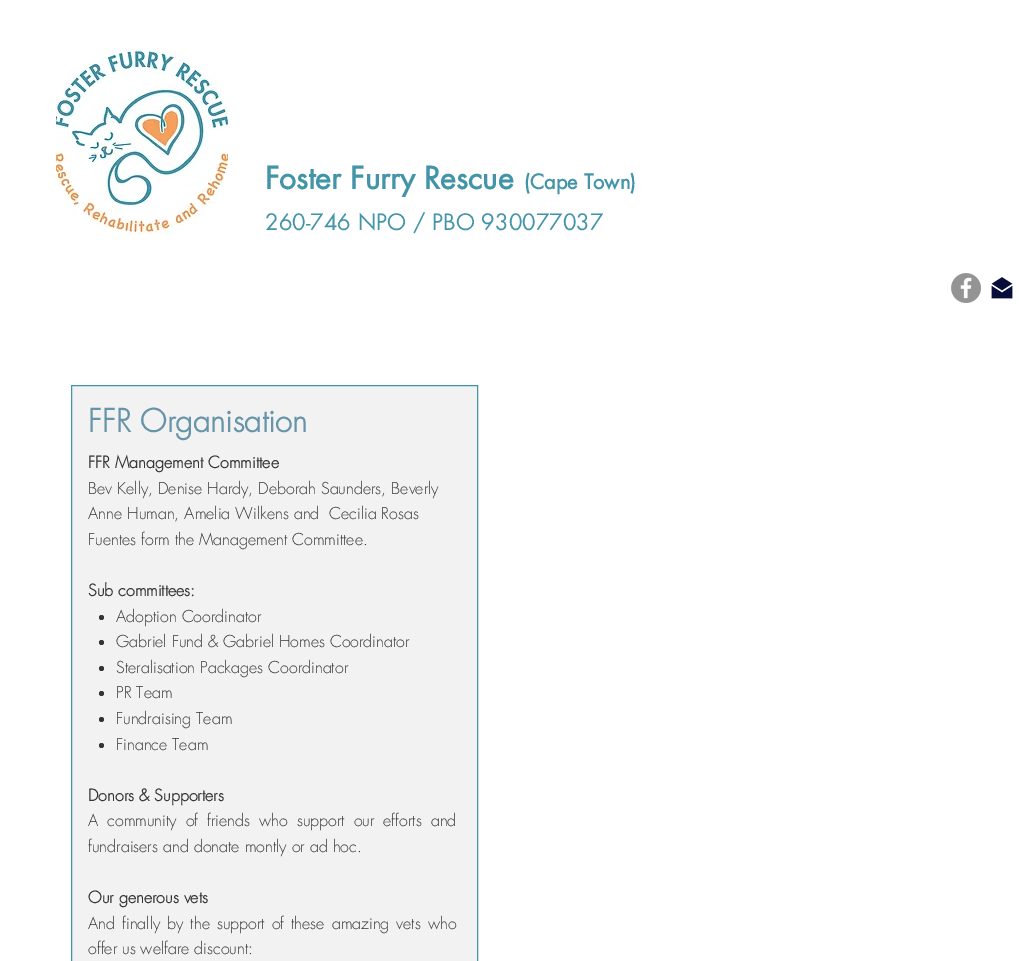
%!PS-Adobe-3.0
%%BoundingBox: 0 0 1019 961
%%LanguageLevel: 3
%%Pages: 1
%%EndComments
%%BeginProlog
/setink { dup -16 bitshift 255 div exch dup -8 bitshift 255 and 255 div exch 255 and 255 div setrgbcolor } def
/usefont { [ exch dup neg 0 0 3 -1 roll 0 0 ] selectfont } def
/disc { newpath 0 360 arc closepath } def
/drawimage { 5 dict begin { /h /w /y /x /name } { exch def } forall
  gsave x y translate w h scale
  w h 8 [w 0 0 h 0 0] name (r) file false 3 colorimage grestore end } def
%%EndProlog
%%BeginSetup
<< /PageSize [1019 961] >> setpagedevice
%%EndSetup
%%Page: 1 1
0 961 translate 1 -1 scale
4 setmiterlimit
16#FFFFFF setink
0 0 1019 961 rectfill
(img1.raw) 56 50 172 186 drawimage
/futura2-Bold 30 usefont
16#4294A8 setink
265 189 moveto (Foster Furry Rescue) show
/futura2-Bold 20 usefont
524 189 moveto (\(Cape Town\)) show
/futura-Regular 22 usefont
265 230 moveto (260-746 NPO / PBO 930077037) show
(img2.raw) 951 273 30 30 drawimage
(img3.raw) 991 277 22 22 drawimage
16#F3F2F2 setink
71.5 385.5 moveto 477.5 385.5 lineto 477.5 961.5 lineto 71.5 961.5 lineto closepath gsave fill grestore
16#4294A8 setink
stroke
/futura-Bold 31 usefont
16#6695A9 setink
88 432 moveto (FFR Organisation) show
/futura-Bold 16 usefont
16#333333 setink
88 468 moveto (FFR Management Committee) show
/futura-Light 16 usefont
[
    [(Bev Kelly, Denise Hardy, Deborah Saunders, Beverly) 88 494]
    [(Anne Human, Amelia Wilkens and  Cecilia Rosas) 88 519]
    [(Fuentes form the Management Committee.) 88 545]
] { aload pop moveto show } forall
/futura-Bold 16 usefont
88 596 moveto (Sub committees:) show
101.5 617.5 2.5 disc fill
/futura-Light 16 usefont
116 622 moveto (Adoption Coordinator) show
101.5 642.5 2.5 disc fill
116 647 moveto (Gabriel Fund & Gabriel Homes Coordinator) show
101.5 668.5 2.5 disc fill
116 673 moveto (Steralisation Packages Coordinator) show
101.5 693.5 2.5 disc fill
116 698 moveto (PR Team) show
101.5 719.5 2.5 disc fill
116 724 moveto (Fundraising Team) show
101.5 745.5 2.5 disc fill
116 750 moveto (Finance Team) show
/futura-Bold 16 usefont
88 801 moveto (Donors & Supporters) show
/futura-Light 16 usefont
88 826 moveto 4 0 32 (A community of friends who support our efforts and) widthshow
88 852 moveto (fundraisers and donate montly or ad hoc.) show
/futura-Bold 16 usefont
88 903 moveto (Our generous vets) show
/futura-Light 16 usefont
88 929 moveto 2 0 32 (And finally by the support of these amazing vets who) widthshow
88 954 moveto (offer us welfare discount:) show
showpage
%%EOF
